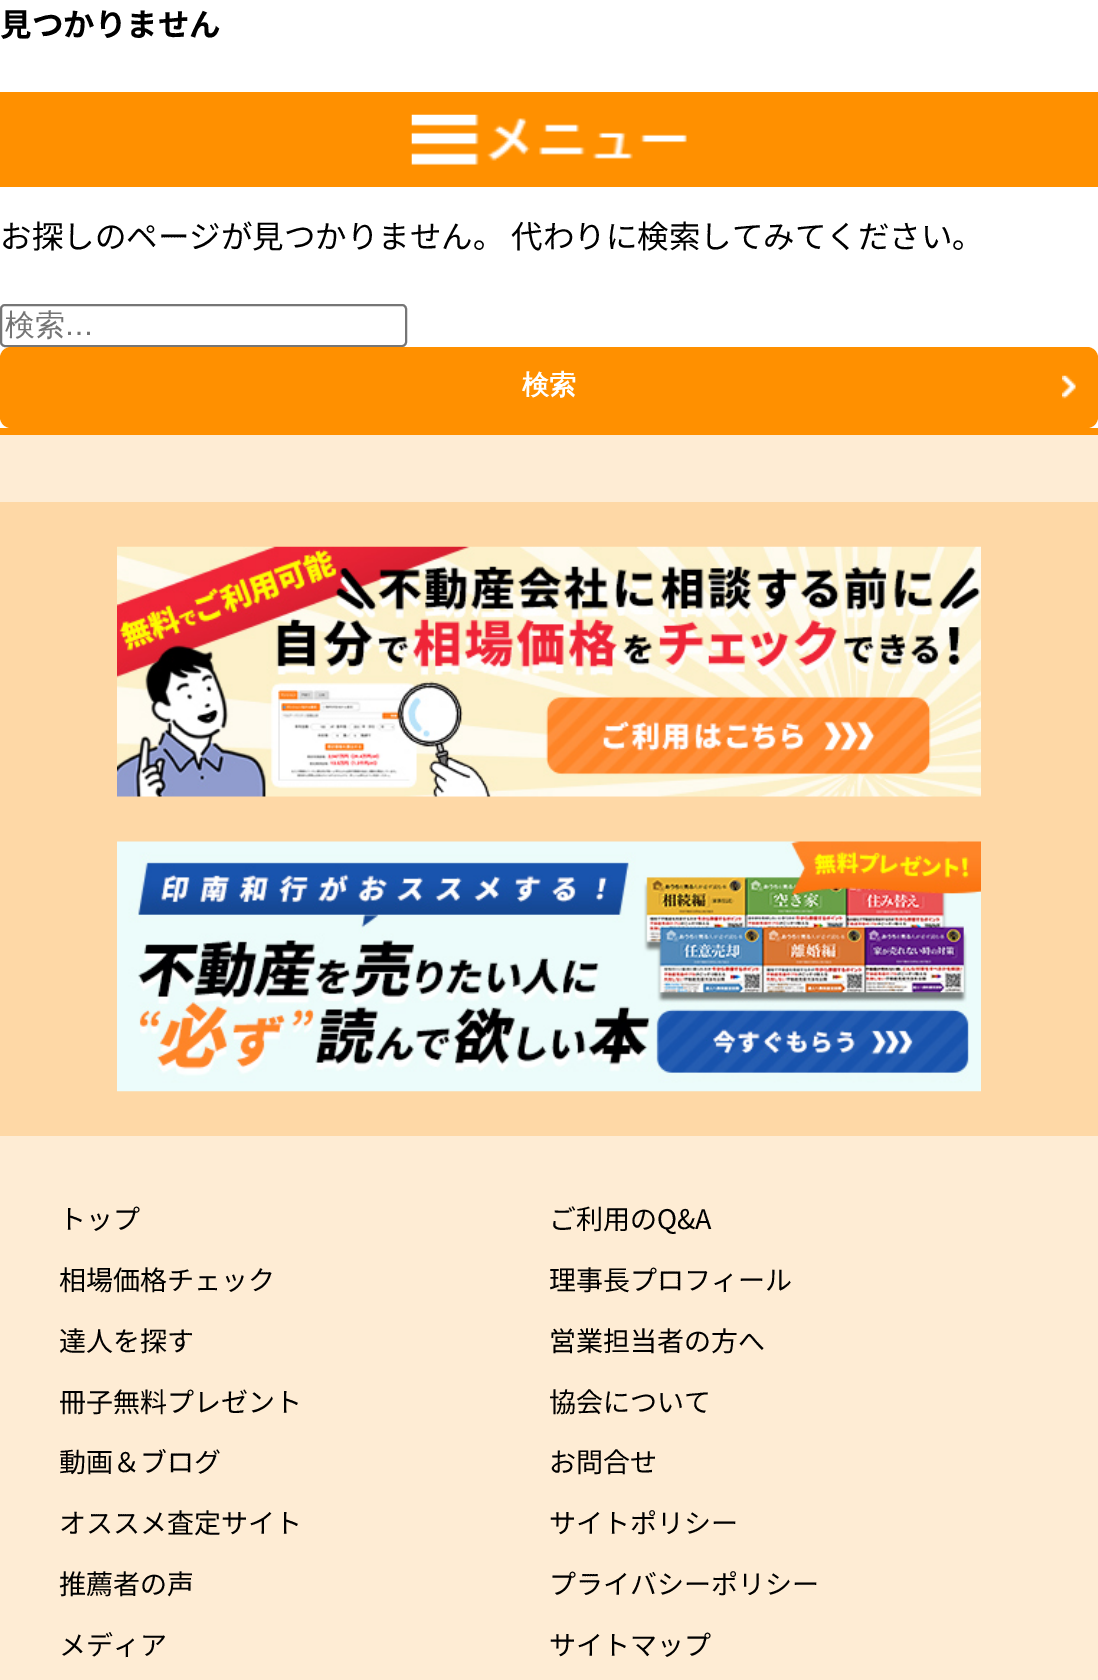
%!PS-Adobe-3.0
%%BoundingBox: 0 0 1098 1680
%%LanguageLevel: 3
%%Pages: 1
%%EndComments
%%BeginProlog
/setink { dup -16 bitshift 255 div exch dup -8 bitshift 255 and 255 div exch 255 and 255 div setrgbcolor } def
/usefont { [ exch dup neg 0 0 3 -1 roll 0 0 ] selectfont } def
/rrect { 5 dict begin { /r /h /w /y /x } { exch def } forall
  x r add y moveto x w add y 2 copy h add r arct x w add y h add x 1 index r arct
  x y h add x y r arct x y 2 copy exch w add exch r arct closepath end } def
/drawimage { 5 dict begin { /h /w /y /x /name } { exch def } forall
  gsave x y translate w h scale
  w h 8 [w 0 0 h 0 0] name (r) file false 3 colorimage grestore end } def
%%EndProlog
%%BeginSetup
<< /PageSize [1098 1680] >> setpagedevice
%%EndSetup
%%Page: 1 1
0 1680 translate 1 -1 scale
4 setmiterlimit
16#FFFFFF setink
0 0 1098 1680 rectfill
/NotoSansJP-Bold 31.5 usefont
16#000000 setink
0 36 moveto (見つかりません) show
/NotoSansJP-Regular 31.5 usefont
0 248 moveto (お探しのページが見つかりません。 代わりに検索してみてください。) show
16#767676 setink
2 setlinewidth
1 305 405 41 4 rrect stroke
/WenQuanYiZenHei-Medium 30 usefont
16#757575 setink
5 335 moveto (検索) show
/LiberationSans-Regular 30 usefont
64 335 moveto (…) show
16#FF9000 setink
0 347 1098 81 11 rrect fill
(img1.raw) 1062 375 14 24 drawimage
/WenQuanYiZenHei-Bold 27 usefont
16#FFFFFF setink
522 394 moveto (検索) show
16#FF9000 setink
0 92 1098 95 rectfill
(img2.raw) 411 114 276 51 drawimage
[
    [0 435 1098 1245 16#FEECD4]
    [0 428 1098 7 16#FF9000]
    [0 502 1098 634 16#FED8A6]
] { aload pop setink rectfill } forall
(img3.raw) 117 546 864 251 drawimage
(img4.raw) 117 841 864 251 drawimage
/NotoSansJP-Regular 27 usefont
16#000000 setink
[
    [(トップ) 59 1229]
    [(相場価格チェック) 59 1290]
    [(達人を探す) 59 1351]
    [(冊子無料プレゼント) 59 1412]
    [(動画＆ブログ) 59 1472]
    [(オススメ査定サイト) 59 1533]
    [(推薦者の声) 59 1594]
    [(メディア) 59 1655]
    [(ご利用のQ&A) 549 1229]
    [(理事長プロフィール) 549 1290]
    [(営業担当者の方へ) 549 1351]
    [(協会について) 549 1412]
    [(お問合せ) 549 1472]
    [(サイトポリシー) 549 1533]
    [(プライバシーポリシー) 549 1594]
    [(サイトマップ) 549 1655]
] { aload pop moveto show } forall
showpage
%%EOF
